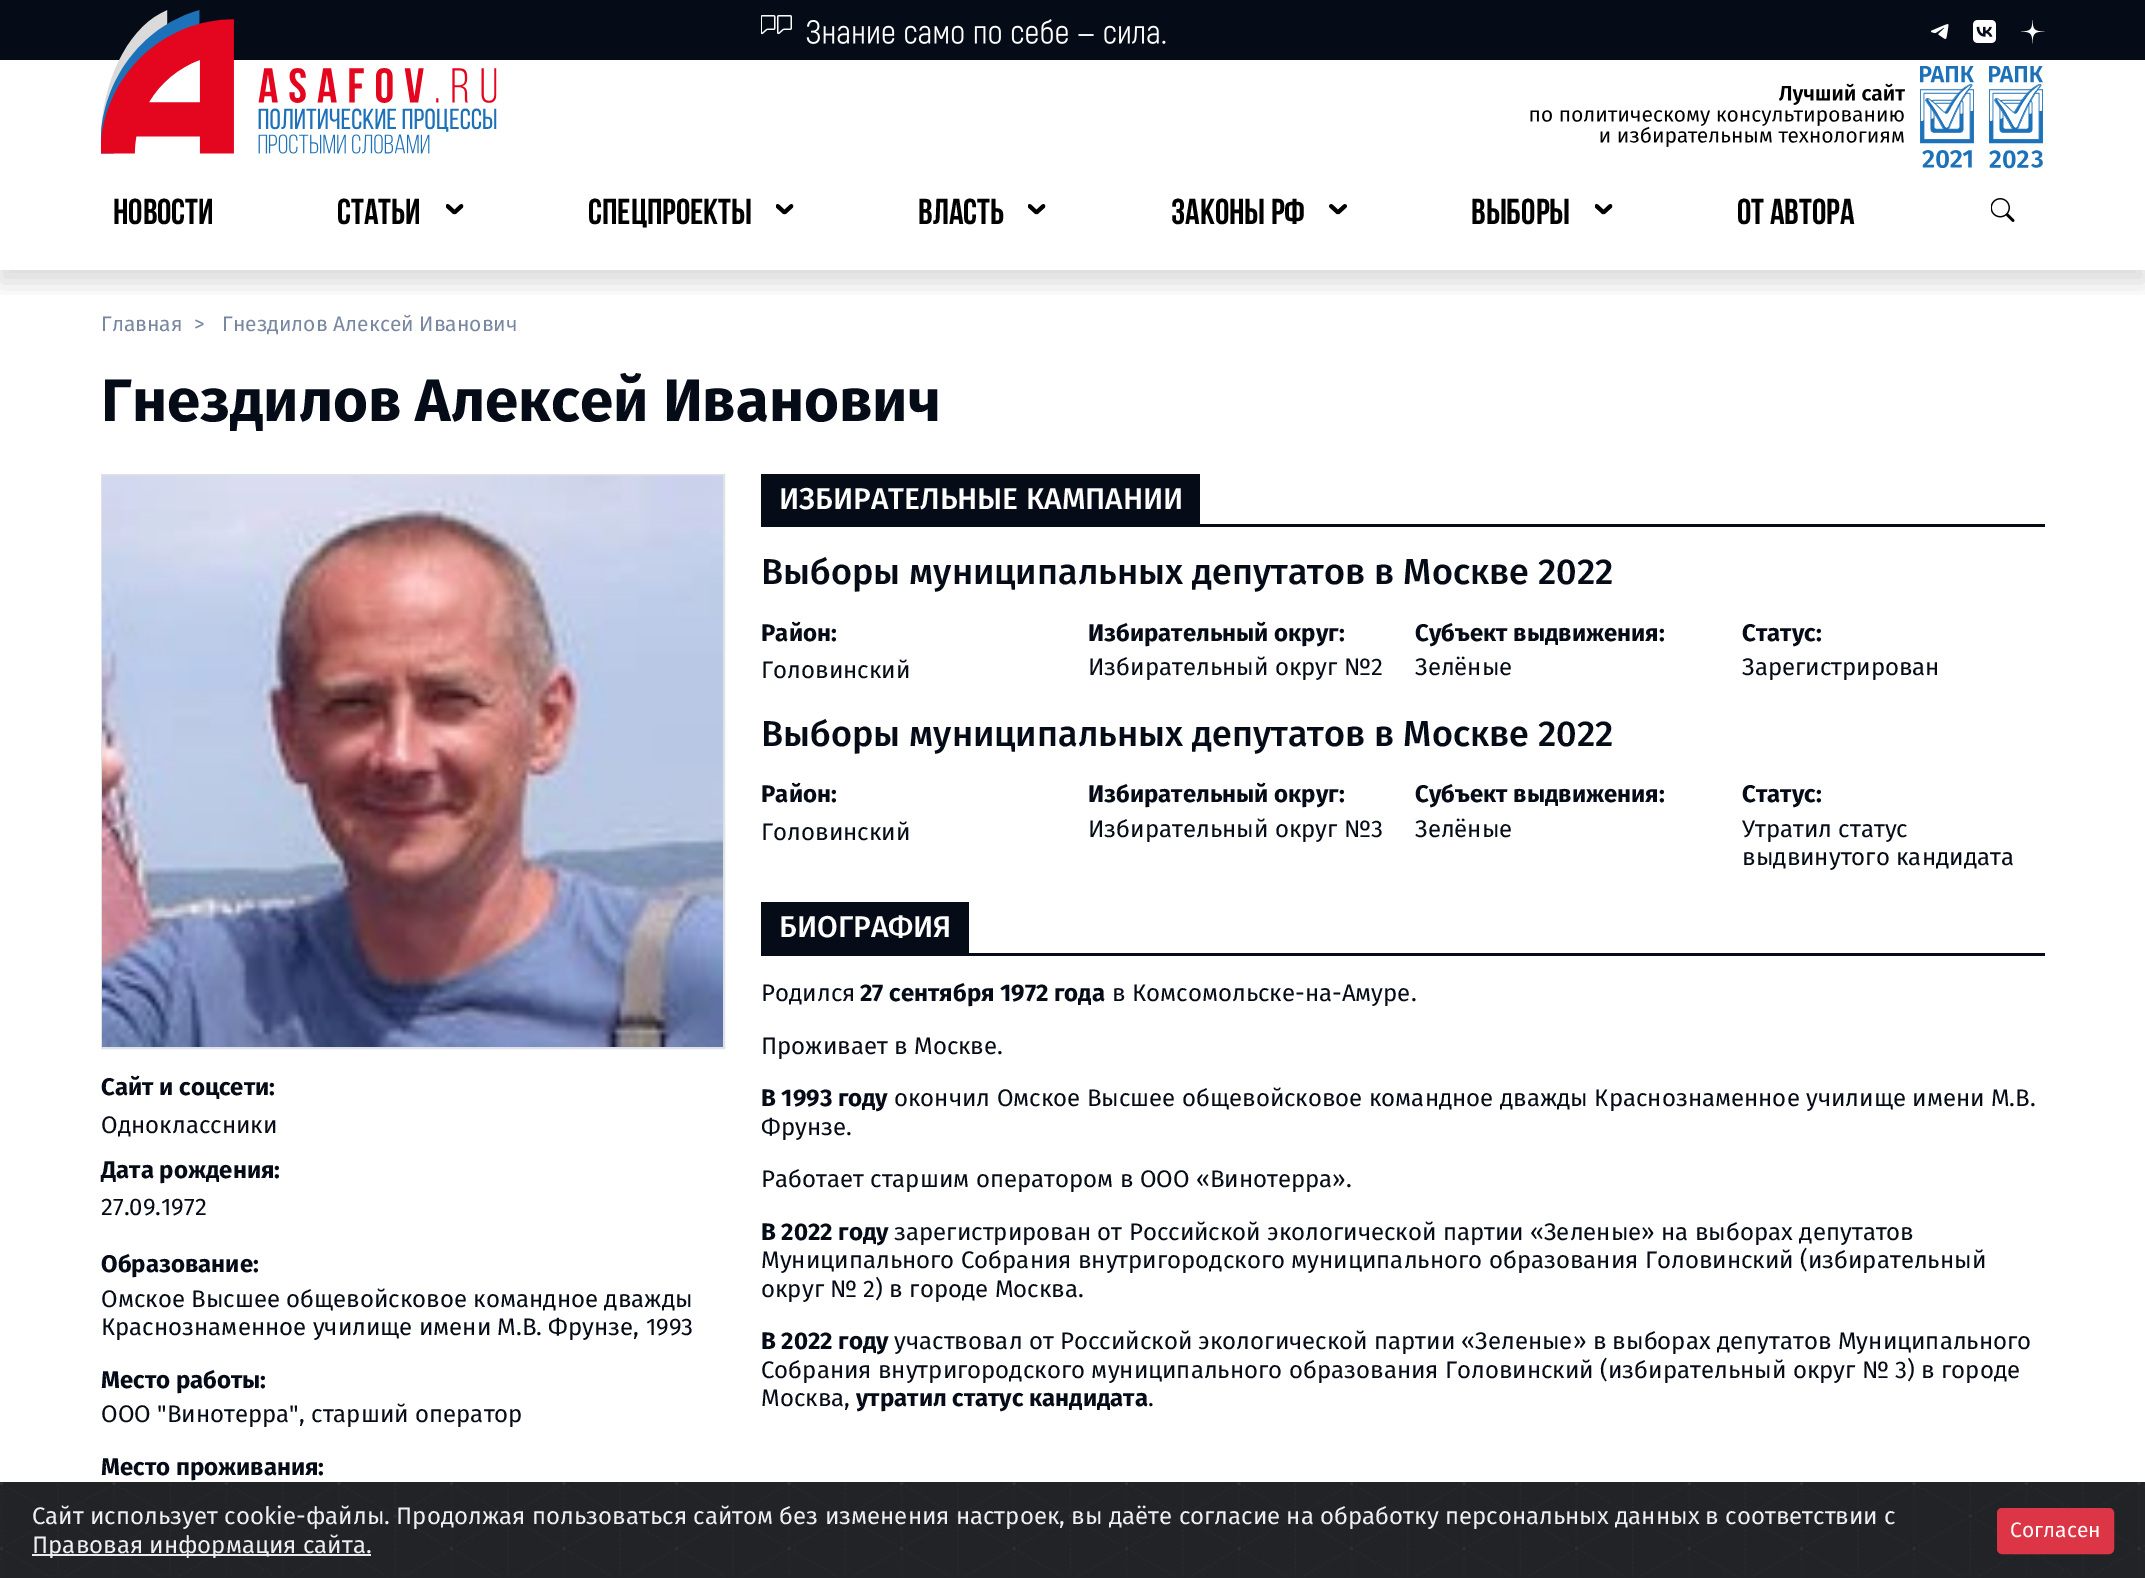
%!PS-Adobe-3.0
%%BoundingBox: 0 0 2145 1578
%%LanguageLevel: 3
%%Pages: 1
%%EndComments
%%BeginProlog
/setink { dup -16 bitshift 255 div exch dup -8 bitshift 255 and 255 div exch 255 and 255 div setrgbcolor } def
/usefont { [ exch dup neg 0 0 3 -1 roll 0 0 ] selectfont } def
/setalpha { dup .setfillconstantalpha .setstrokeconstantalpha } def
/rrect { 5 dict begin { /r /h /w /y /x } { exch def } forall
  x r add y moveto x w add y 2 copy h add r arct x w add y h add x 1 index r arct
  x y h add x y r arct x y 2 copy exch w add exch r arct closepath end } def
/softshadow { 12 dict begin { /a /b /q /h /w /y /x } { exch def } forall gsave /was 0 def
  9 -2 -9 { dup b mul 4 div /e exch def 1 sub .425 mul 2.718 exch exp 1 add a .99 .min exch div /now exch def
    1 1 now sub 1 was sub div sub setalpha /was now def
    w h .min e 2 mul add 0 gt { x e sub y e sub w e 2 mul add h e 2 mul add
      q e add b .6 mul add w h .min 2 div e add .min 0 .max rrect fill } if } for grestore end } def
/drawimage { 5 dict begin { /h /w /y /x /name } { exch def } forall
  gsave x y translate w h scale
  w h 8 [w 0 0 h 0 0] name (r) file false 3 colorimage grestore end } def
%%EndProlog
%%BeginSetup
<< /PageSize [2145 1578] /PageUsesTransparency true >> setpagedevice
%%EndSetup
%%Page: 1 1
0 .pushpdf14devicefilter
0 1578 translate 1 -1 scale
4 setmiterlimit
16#FFFFFF setink
0 0 2145 1578 rectfill
gsave
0 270 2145 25 rectclip
16#000000 setink
0 12 2145 270 0 12 0.15 softshadow
grestore
16#060C17 setink
0 0 2145 60 rectfill
(img1.raw) 761 15 405 29 drawimage
(img2.raw) 1931 24 18 15 drawimage
(img3.raw) 1973 20 23 23 drawimage
(img4.raw) 2021 20 24 24 drawimage
(img5.raw) 101 10 396 144 drawimage
(img6.raw) 1530 66 513 103 drawimage
/BebasNeue-Bold 36 usefont
16#000000 setink
113 224 moveto (НОВОСТИ) show
337 224 moveto (СТАТЬИ) show
(img7.raw) 446 204 18 11 drawimage
588 224 moveto (СПЕЦПРОЕКТЫ) show
(img7.raw) 776 204 18 11 drawimage
918 224 moveto (ВЛАСТЬ) show
(img7.raw) 1028 204 18 11 drawimage
1171 224 moveto (ЗАКОНЫ РФ) show
(img8.raw) 1329 204 18 11 drawimage
1471 224 moveto (ВЫБОРЫ) show
(img7.raw) 1595 204 18 11 drawimage
1737 224 moveto (ОТ АВТОРА) show
(img9.raw) 1991 198 24 24 drawimage
/FiraSans-Regular 21 usefont
16#7987A1 setink
[
    [(Главная) 101 331]
    [(>) 194 331]
    [(Гнездилов Алексей Иванович) 222 331]
] { aload pop moveto show } forall
/FiraSans-Bold 60 usefont
16#060C17 setink
101 421 moveto (Гнездилов Алексей Иванович) show
16#DEE2E6 setink
2 setlinewidth
102 475 622 573 rectstroke
(img10.raw) 102 475 621 572 drawimage
/FiraSans-Bold 24 usefont
16#060C17 setink
101 1095 moveto (Сайт и соцсети:) show
/FiraSans-Regular 24 usefont
101 1133 moveto (Одноклассники) show
/FiraSans-Bold 24 usefont
101 1178 moveto (Дата рождения:) show
/FiraSans-Regular 24 usefont
101 1215 moveto (27.09.1972) show
/FiraSans-Bold 24 usefont
101 1272 moveto (Образование:) show
/FiraSans-Regular 24 usefont
101 1307 moveto (Омское Высшее общевойсковое командное дважды) show
101 1335 moveto (Краснознаменное училище имени М.В. Фрунзе, 1993) show
/FiraSans-Bold 24 usefont
101 1388 moveto (Место работы:) show
/FiraSans-Regular 24 usefont
101 1422 moveto (ООО "Винотерра", старший оператор) show
/FiraSans-Bold 24 usefont
101 1475 moveto (Место проживания:) show
761 524 1284 3 rectfill
761 474 439 50 rectfill
/FiraSans-Medium 30 usefont
16#FFFFFF setink
779 509 moveto (ИЗБИРАТЕЛЬНЫЕ КАМПАНИИ) show
/FiraSans-Medium 36 usefont
16#060C17 setink
761 584 moveto (Выборы муниципальных депутатов в Москве 2022) show
/FiraSans-Bold 24 usefont
761 641 moveto (Район:) show
/FiraSans-Regular 24 usefont
761 678 moveto (Головинский) show
/FiraSans-Bold 24 usefont
1088 641 moveto (Избирательный округ:) show
/FiraSans-Regular 24 usefont
1088 675 moveto (Избирательный округ №2) show
/FiraSans-Bold 24 usefont
1415 641 moveto (Субъект выдвижения:) show
/FiraSans-Regular 24 usefont
1415 675 moveto (Зелёные) show
/FiraSans-Bold 24 usefont
1742 641 moveto (Статус:) show
/FiraSans-Regular 24 usefont
1742 675 moveto (Зарегистрирован) show
/FiraSans-Medium 36 usefont
761 746 moveto (Выборы муниципальных депутатов в Москве 2022) show
/FiraSans-Bold 24 usefont
761 802 moveto (Район:) show
/FiraSans-Regular 24 usefont
761 840 moveto (Головинский) show
/FiraSans-Bold 24 usefont
1088 802 moveto (Избирательный округ:) show
/FiraSans-Regular 24 usefont
1088 837 moveto (Избирательный округ №3) show
/FiraSans-Bold 24 usefont
1415 802 moveto (Субъект выдвижения:) show
/FiraSans-Regular 24 usefont
1415 837 moveto (Зелёные) show
/FiraSans-Bold 24 usefont
1742 802 moveto (Статус:) show
/FiraSans-Regular 24 usefont
1742 837 moveto (Утратил статус) show
1742 865 moveto (выдвинутого кандидата) show
761 953 1284 3 rectfill
761 902 208 51 rectfill
/FiraSans-Medium 30 usefont
16#FFFFFF setink
779 937 moveto (БИОГРАФИЯ) show
/FiraSans-Regular 24 usefont
16#060C17 setink
761 1001 moveto (Родился) show
/FiraSans-Bold 24 usefont
860 1001 moveto (27 сентября 1972 года) show
/FiraSans-Regular 24 usefont
1112 1001 moveto (в Комсомольске-на-Амуре.) show
761 1054 moveto (Проживает в Москве.) show
/FiraSans-Bold 24 usefont
761 1106 moveto (В 1993 году) show
/FiraSans-Regular 24 usefont
[
    [(окончил Омское Высшее общевойсковое командное дважды Краснознаменное училище имени М.В.) 894 1106]
    [(Фрунзе.) 761 1135]
    [(Работает старшим оператором в ООО «Винотерра».) 761 1187]
] { aload pop moveto show } forall
/FiraSans-Bold 24 usefont
761 1240 moveto (В 2022 году) show
/FiraSans-Regular 24 usefont
[
    [(зарегистрирован от Российской экологической партии «Зеленые» на выборах депутатов) 894 1240]
    [(Муниципального Собрания внутригородского муниципального образования Головинский \(избирательный) 761 1268]
    [(округ № 2\) в городе Москва.) 761 1297]
] { aload pop moveto show } forall
/FiraSans-Bold 24 usefont
761 1349 moveto (В 2022 году) show
/FiraSans-Regular 24 usefont
[
    [(участвовал от Российской экологической партии «Зеленые» в выборах депутатов Муниципального) 894 1349]
    [(Собрания внутригородского муниципального образования Головинский \(избирательный округ № 3\) в городе) 761 1378]
    [(Москва,) 761 1406]
] { aload pop moveto show } forall
/FiraSans-Bold 24 usefont
856 1406 moveto (утратил статус кандидата) show
/FiraSans-Regular 24 usefont
1148 1406 moveto (.) show
16#212327 setink
0 1577 2145 1 rectfill
(img11.raw) 0 1482 2145 95 drawimage
16#ECF0F1 setink
32 1524 moveto (Сайт использует cookie-файлы. Продолжая пользоваться сайтом без изменения настроек, вы даёте согласие на обработку персональных данных в соответствии с) show
16#E9ECEF setink
32 1554 339 2 rectfill
16#ECF0F1 setink
32 1553 moveto (Правовая информация сайта.) show
16#DC3545 setink
1998 1509 115 44 4 rrect gsave fill grestore
stroke
/FiraSans-Regular 21 usefont
16#FFFFFF setink
2010 1537 moveto (Согласен) show
.poppdf14devicefilter showpage
%%EOF
